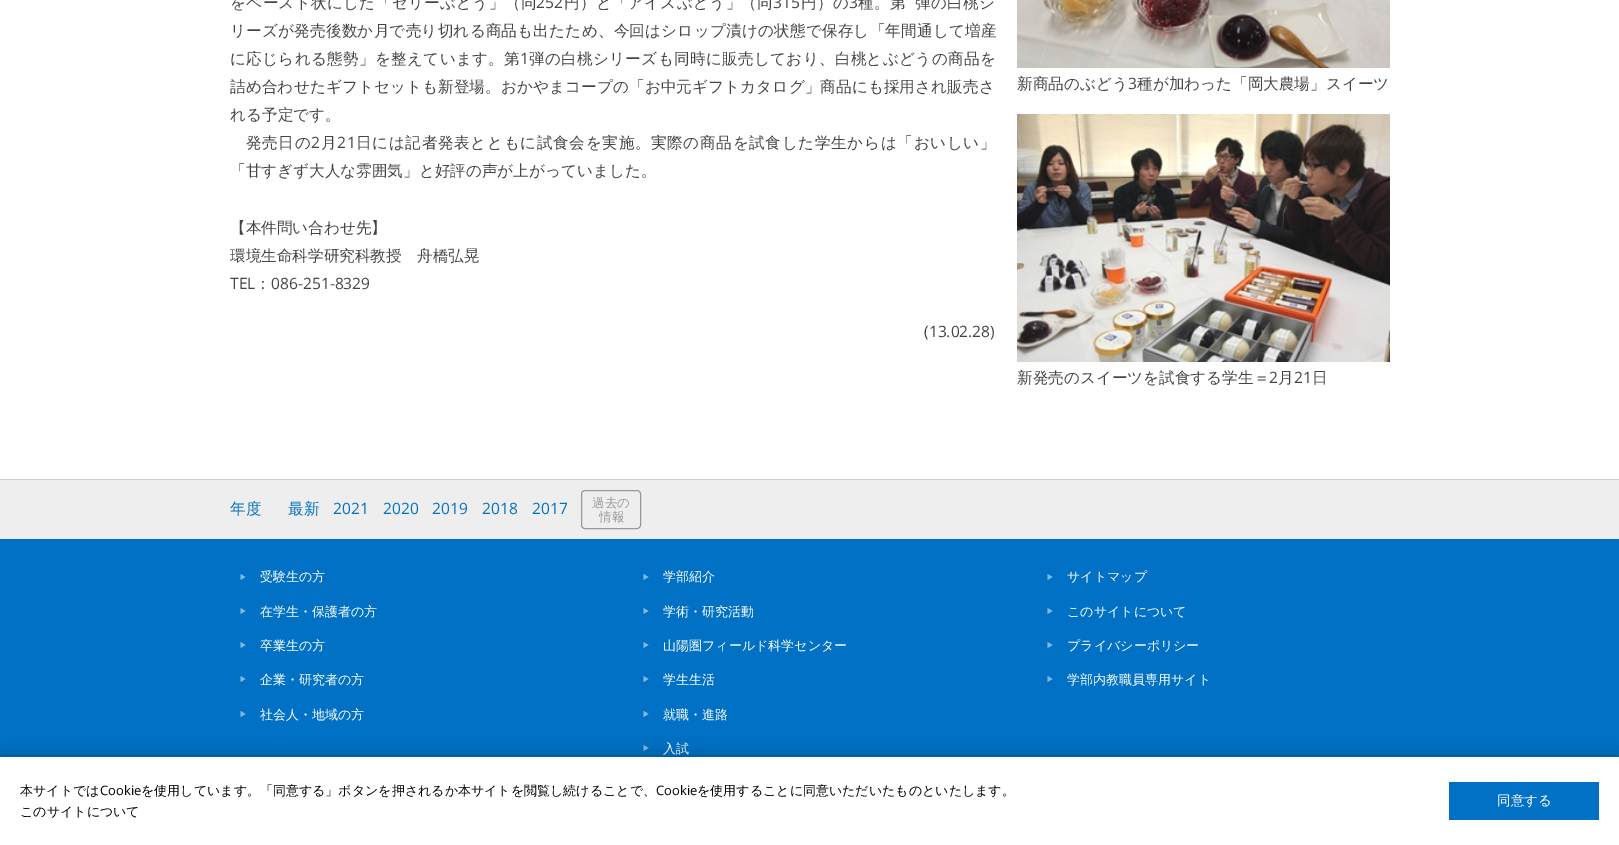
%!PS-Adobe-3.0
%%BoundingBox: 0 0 1619 845
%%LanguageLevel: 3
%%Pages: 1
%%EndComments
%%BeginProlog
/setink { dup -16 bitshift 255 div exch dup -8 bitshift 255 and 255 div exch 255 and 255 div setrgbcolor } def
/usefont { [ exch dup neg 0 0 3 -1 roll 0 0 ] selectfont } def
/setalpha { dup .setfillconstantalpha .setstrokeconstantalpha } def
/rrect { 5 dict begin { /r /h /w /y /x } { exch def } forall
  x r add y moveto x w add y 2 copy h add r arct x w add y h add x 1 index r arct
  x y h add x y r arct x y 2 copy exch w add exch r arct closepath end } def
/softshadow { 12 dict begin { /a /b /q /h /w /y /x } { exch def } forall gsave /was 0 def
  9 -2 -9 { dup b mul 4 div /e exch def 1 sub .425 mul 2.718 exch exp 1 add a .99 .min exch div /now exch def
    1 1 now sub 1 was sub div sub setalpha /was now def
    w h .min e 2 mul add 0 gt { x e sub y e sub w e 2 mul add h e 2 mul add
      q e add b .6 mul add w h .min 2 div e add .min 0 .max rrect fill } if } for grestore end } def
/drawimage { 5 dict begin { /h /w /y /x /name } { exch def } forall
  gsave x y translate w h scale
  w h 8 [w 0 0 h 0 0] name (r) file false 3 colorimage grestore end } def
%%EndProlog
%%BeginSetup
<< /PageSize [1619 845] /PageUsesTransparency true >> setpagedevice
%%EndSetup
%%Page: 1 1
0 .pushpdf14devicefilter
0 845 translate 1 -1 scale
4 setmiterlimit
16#0071C5 setink
0 0 1619 845 rectfill
16#FFFFFF setink
0 0 1619 479 rectfill
/WenQuanYiZenHei-Medium 15.6 usefont
16#444444 setink
230 8 moveto 0.3 0 (をペースト状にした「ゼリーぶどう」（同) ashow
/OpenSans-Regular 15.6 usefont
536 8 moveto 0.3 0 (252) ashow
/WenQuanYiZenHei-Medium 15.6 usefont
564 8 moveto 0.3 0 (円）と「アイスぶどう」（同) ashow
/OpenSans-Regular 15.6 usefont
773 8 moveto 0.3 0 (315) ashow
/WenQuanYiZenHei-Medium 15.6 usefont
801 8 moveto 0.3 0 (円）の) ashow
/OpenSans-Regular 15.6 usefont
849 8 moveto 0.3 0 (3) ashow
/WenQuanYiZenHei-Medium 15.6 usefont
858 8 moveto 0.3 0 (種。第) ashow
915 8 moveto 0.3 0 (弾の白桃シ) ashow
230 36 moveto 0.2 0 (リーズが発売後数か月で売り切れる商品も出たため、今回はシロップ漬けの状態で保存し「年間通して増産) ashow
230 64 moveto 0.3 0 (に応じられる態勢」を整えています。第) ashow
/OpenSans-Regular 15.6 usefont
520 64 moveto 0.3 0 (1) ashow
/WenQuanYiZenHei-Medium 15.6 usefont
529 64 moveto 0.3 0 (弾の白桃シリーズも同時に販売しており、白桃とぶどうの商品を) ashow
230 92 moveto 0.1 0 (詰め合わせたギフトセットも新登場。おかやまコープの「お中元ギフトカタログ」商品にも採用され販売さ) ashow
230 120 moveto (れる予定です。) show
246 148 moveto 0.65 0 (発売日の) ashow
/OpenSans-Regular 15.6 usefont
311 148 moveto 0.65 0 (2) ashow
/WenQuanYiZenHei-Medium 15.6 usefont
321 148 moveto 0.65 0 (月) ashow
/OpenSans-Regular 15.6 usefont
337 148 moveto 0.65 0 (21) ashow
/WenQuanYiZenHei-Medium 15.6 usefont
356 148 moveto 0.65 0 (日には記者発表とともに試食会を実施。実際の商品を試食した学生からは「おいしい」) ashow
[
    [(「甘すぎず大人な雰囲気」と好評の声が上がっていました。) 230 176]
    [(【本件問い合わせ先】) 230 233]
    [(環境生命科学研究科教授　舟橋弘晃) 230 261]
] { aload pop moveto show } forall
/OpenSans-Regular 15.6 usefont
230 289 moveto (TEL) show
/WenQuanYiZenHei-Medium 15.6 usefont
255 289 moveto (：) show
/OpenSans-Regular 15.6 usefont
271 289 moveto (086-251-8329) show
924 337 moveto (\(13.02.28\)) show
(img1.raw) 1017 0 373 68 drawimage
/WenQuanYiZenHei-Medium 15.6 usefont
1017 89 moveto (新商品のぶどう) show
/OpenSans-Regular 15.6 usefont
1128 89 moveto (3) show
/WenQuanYiZenHei-Medium 15.6 usefont
1137 89 moveto (種が加わった「岡大農場」スイーツ) show
(img2.raw) 1017 114 373 248 drawimage
1017 383 moveto (新発売のスイーツを試食する学生＝) show
/OpenSans-Regular 15.6 usefont
1269 383 moveto (2) show
/WenQuanYiZenHei-Medium 15.6 usefont
1278 383 moveto (月) show
/OpenSans-Regular 15.6 usefont
1294 383 moveto (21) show
/WenQuanYiZenHei-Medium 15.6 usefont
1312 383 moveto (日) show
16#EEEEEE setink
0 480 1619 59 rectfill
16#CCCCCC setink
0 479 1619 1 rectfill
16#0B73BB setink
230 514 moveto (年度) show
16#0071C5 setink
288 514 moveto (最新) show
/OpenSans-Regular 15.6 usefont
[
    [(2021) 333 514]
    [(2020) 383 514]
    [(2019) 432 514]
    [(2018) 482 514]
    [(2017) 532 514]
] { aload pop moveto show } forall
16#999999 setink
581.5 490.5 59 38 3.5 rrect stroke
/WenQuanYiZenHei-Medium 12.5 usefont
592 507 moveto (過去の) show
599 521 moveto (情報) show
16#80B8E2 setink
240.5 574 moveto 245.5 577 lineto 240.5 580 lineto closepath 240.5 608 moveto 245.5 611 lineto 240.5 614 lineto closepath fill
/WenQuanYiZenHei-Medium 13 usefont
16#FFFFFF setink
260 581 moveto (受験生の方) show
260 616 moveto (在学生・保護者の方) show
16#80B8E2 setink
240.5 642 moveto 245.5 645 lineto 240.5 648 lineto closepath 240.5 676 moveto 245.5 679 lineto 240.5 682 lineto closepath fill
16#FFFFFF setink
260 650 moveto (卒業生の方) show
260 684 moveto (企業・研究者の方) show
16#80B8E2 setink
240.5 711 moveto 245.5 714 lineto 240.5 717 lineto closepath fill
16#FFFFFF setink
260 719 moveto (社会人・地域の方) show
16#80B8E2 setink
643.5 574 moveto 648.5 577 lineto 643.5 580 lineto closepath 643.5 608 moveto 648.5 611 lineto 643.5 614 lineto closepath fill
16#FFFFFF setink
663 581 moveto (学部紹介) show
663 616 moveto (学術・研究活動) show
16#80B8E2 setink
643.5 642 moveto 648.5 645 lineto 643.5 648 lineto closepath 643.5 676 moveto 648.5 679 lineto 643.5 682 lineto closepath fill
16#FFFFFF setink
663 650 moveto (山陽圏フィールド科学センター) show
663 684 moveto (学生生活) show
16#80B8E2 setink
643.5 711 moveto 648.5 714 lineto 643.5 717 lineto closepath 643.5 745 moveto 648.5 748 lineto 643.5 751 lineto closepath fill
16#FFFFFF setink
663 719 moveto (就職・進路) show
663 753 moveto (入試) show
16#80B8E2 setink
1047.5 574 moveto 1052.5 577 lineto 1047.5 580 lineto closepath 1047.5 608 moveto 1052.5 611 lineto 1047.5 614 lineto closepath fill
16#FFFFFF setink
1067 581 moveto (サイトマップ) show
1067 616 moveto (このサイトについて) show
16#80B8E2 setink
1047.5 642 moveto 1052.5 645 lineto 1047.5 648 lineto closepath 1047.5 676 moveto 1052.5 679 lineto 1047.5 682 lineto closepath fill
16#FFFFFF setink
1067 650 moveto (プライバシーポリシー) show
1067 684 moveto (学部内教職員専用サイト) show
16#000000 setink
0 757 1619 88 0 10 0.3 softshadow
16#FFFFFF setink
0 757 1619 88 rectfill
16#000000 setink
20 795 moveto (本サイトでは) show
/OpenSans-Regular 13 usefont
100 795 moveto (Cookie) show
/WenQuanYiZenHei-Medium 13 usefont
141 795 moveto (を使用しています。「同意する」ボタンを押されるか本サイトを閲覧し続けることで、) show
/OpenSans-Regular 13 usefont
656 795 moveto (Cookie) show
/WenQuanYiZenHei-Medium 13 usefont
697 795 moveto (を使用することに同意いただいたものといたします。) show
20 816 moveto (このサイトについて) show
16#0071C5 setink
1449 782 150 38 rectfill
/WenQuanYiZenHei-Medium 13.5 usefont
16#FFFFFF setink
1497 805 moveto (同意する) show
.poppdf14devicefilter showpage
%%EOF
